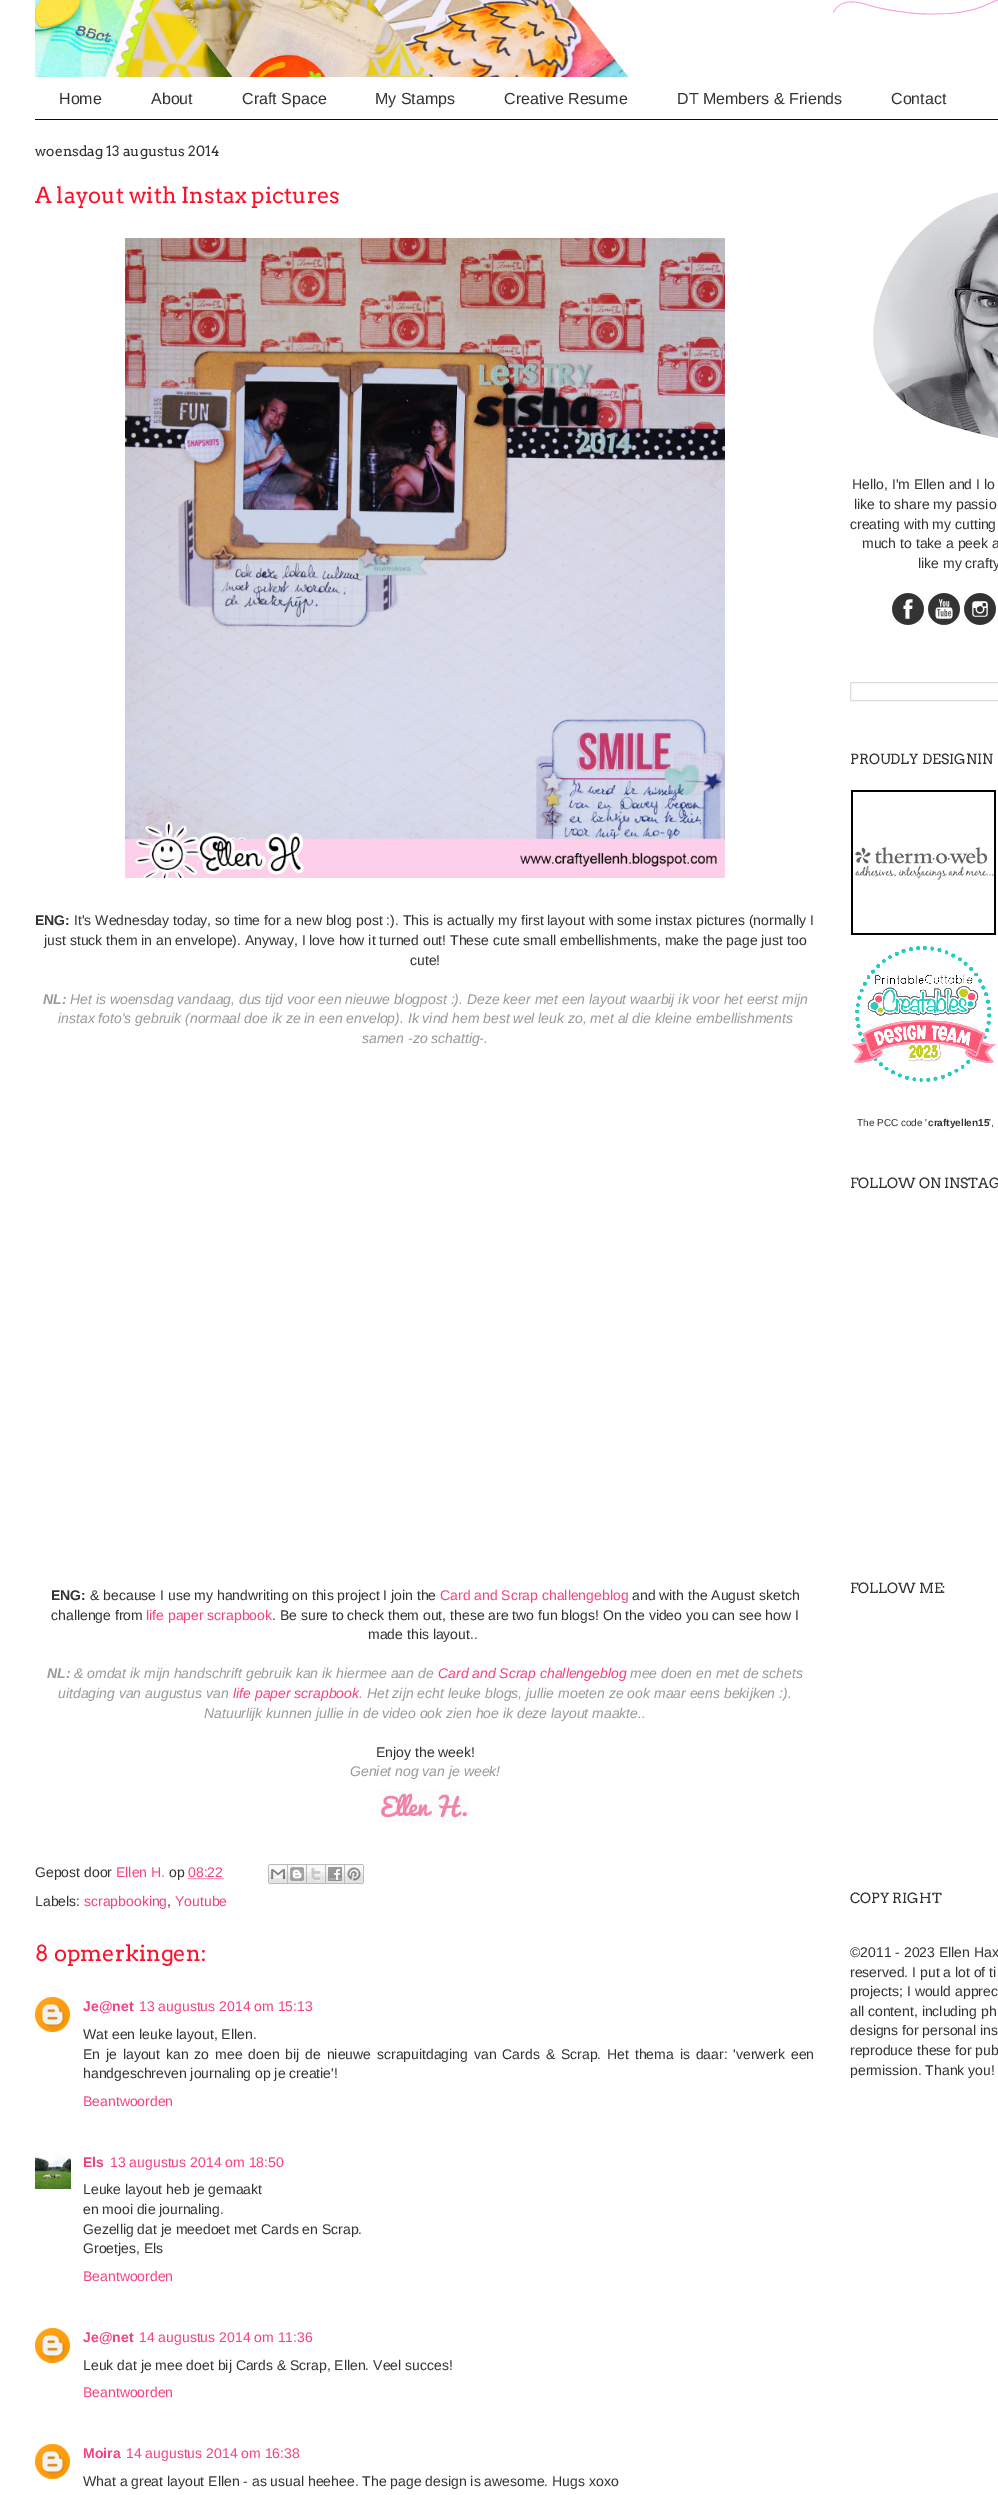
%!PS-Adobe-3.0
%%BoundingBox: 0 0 998 2495
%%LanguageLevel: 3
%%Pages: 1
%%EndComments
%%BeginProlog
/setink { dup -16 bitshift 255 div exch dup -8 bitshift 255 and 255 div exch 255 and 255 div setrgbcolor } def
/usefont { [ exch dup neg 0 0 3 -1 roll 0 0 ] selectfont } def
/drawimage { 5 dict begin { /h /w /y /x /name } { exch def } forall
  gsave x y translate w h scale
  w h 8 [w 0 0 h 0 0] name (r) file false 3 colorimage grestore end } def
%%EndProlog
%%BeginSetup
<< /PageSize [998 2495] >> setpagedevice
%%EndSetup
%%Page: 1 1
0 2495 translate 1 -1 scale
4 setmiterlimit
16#FFFFFF setink
0 0 998 2495 rectfill
(img1.raw) 35 0 963 77 drawimage
16#0D0E10 setink
35 119 963 1 rectfill
/LiberationSans-Regular 16 usefont
16#333333 setink
[
    [(Home) 59 104]
    [(About) 151 104]
    [(Craft Space) 242 104]
    [(My Stamps) 375 104]
    [(Creative Resume) 504 104]
    [(DT Members & Friends) 677 104]
    [(Contact) 891 104]
] { aload pop moveto show } forall
/Arvo-Regular 14 usefont
35 156 moveto (woensdag 13 augustus 2014) show
/Arvo-Regular 22 usefont
16#FF102A setink
35 203 moveto (A layout with Instax pictures) show
(img2.raw) 125 238 600 640 drawimage
/LiberationSans-Bold 14 usefont
16#333333 setink
35 925 moveto (ENG:) show
/LiberationSans-Regular 14 usefont
[
    [(It's Wednesday today, so time for a new blog post :\). This is actually my first layout with some instax pictures \(normally I) 74 925]
    [(just stuck them in an envelope\). Anyway, I love how it turned out! These cute small embellishments, make the page just too) 44 945]
    [(cute!) 410 965]
] { aload pop moveto show } forall
/LiberationSans-BoldItalic 14 usefont
16#999999 setink
43 1004 moveto (NL:) show
/LiberationSans-Italic 14 usefont
[
    [(Het is woensdag vandaag, dus tijd voor een nieuwe blogpost :\). Deze keer met een layout waarbij ik voor het eerst mijn) 70 1004]
    [(instax foto's gebruik \(normaal doe ik ze in een envelop\). Ik vind hem best wel leuk zo, met al die kleine embellishments) 58 1023]
    [(samen -zo schattig-.) 362 1043]
] { aload pop moveto show } forall
/LiberationSans-Bold 14 usefont
16#333333 setink
51 1600 moveto (ENG:) show
/LiberationSans-Regular 14 usefont
90 1600 moveto (& because I use my handwriting on this project I join the) show
16#F44184 setink
440 1600 moveto (Card and Scrap challengeblog) show
16#333333 setink
632 1600 moveto (and with the August sketch) show
51 1620 moveto (challenge from) show
16#F44184 setink
146 1620 moveto (life paper scrapbook) show
16#333333 setink
272 1620 moveto (. Be sure to check them out, these are two fun blogs! On the video you can see how I) show
368 1639 moveto (made this layout..) show
/LiberationSans-BoldItalic 14 usefont
16#999999 setink
47 1678 moveto (NL:) show
/LiberationSans-Italic 14 usefont
74 1678 moveto (& omdat ik mijn handschrift gebruik kan ik hiermee aan de) show
16#F44184 setink
438 1678 moveto (Card and Scrap challengeblog) show
16#999999 setink
630 1678 moveto (mee doen en met de schets) show
58 1698 moveto (uitdaging van augustus van) show
16#F44184 setink
233 1698 moveto (life paper scrapbook) show
16#999999 setink
359 1698 moveto (. Het zijn echt leuke blogs, jullie moeten ze ook maar eens bekijken :\).) show
204 1718 moveto (Natuurlijk kunnen jullie in de video ook zien hoe ik deze layout maakte..) show
/LiberationSans-Regular 14 usefont
16#333333 setink
376 1757 moveto (Enjoy the week!) show
/LiberationSans-Italic 14 usefont
16#999999 setink
350 1776 moveto (Geniet nog van je week!) show
(img3.raw) 379 1790 88 32 drawimage
/LiberationSans-Regular 14 usefont
16#333333 setink
35 1877 moveto (Gepost door) show
16#F44184 setink
116 1877 moveto (Ellen H.) show
16#333333 setink
169 1877 moveto (op) show
16#F44184 setink
[1 1] 0 setdash
188.5 1878.5 moveto 223.5 1878.5 lineto stroke
188 1877 moveto (08:22) show
(img4.raw) 268 1864 20 20 drawimage
(img5.raw) 288 1864 19 20 drawimage
(img6.raw) 307 1864 19 20 drawimage
(img7.raw) 326 1864 19 20 drawimage
(img8.raw) 345 1864 19 20 drawimage
16#333333 setink
35 1906 moveto (Labels:) show
16#F44184 setink
84 1906 moveto (scrapbooking) show
16#333333 setink
167 1906 moveto (,) show
16#F44184 setink
175 1906 moveto (Youtube) show
/Arvo-Regular 22 usefont
16#FF102A setink
35 1961 moveto (8 opmerkingen:) show
(img9.raw) 35 1997 35 35 drawimage
/LiberationSans-Bold 14 usefont
16#F44184 setink
83 2011 moveto (Je@net) show
/LiberationSans-Regular 14 usefont
139 2011 moveto (13 augustus 2014 om 15:13) show
16#333333 setink
83 2039 moveto (Wat een leuke layout, Ellen.) show
83 2059 moveto 2 0 32 (En je layout kan zo mee doen bij de nieuwe scrapuitdaging van Cards & Scrap. Het thema is daar: 'verwerk een) widthshow
83 2078 moveto (handgeschreven journaling op je creatie'!) show
16#F44184 setink
83 2106 moveto (Beantwoorden) show
(img10.raw) 35 2153 36 36 drawimage
/LiberationSans-Bold 14 usefont
83 2167 moveto (Els) show
/LiberationSans-Regular 14 usefont
110 2167 moveto (13 augustus 2014 om 18:50) show
16#333333 setink
[
    [(Leuke layout heb je gemaakt) 83 2194]
    [(en mooi die journaling.) 83 2214]
    [(Gezellig dat je meedoet met Cards en Scrap.) 83 2234]
    [(Groetjes, Els) 83 2253]
] { aload pop moveto show } forall
16#F44184 setink
83 2281 moveto (Beantwoorden) show
(img9.raw) 35 2328 35 35 drawimage
/LiberationSans-Bold 14 usefont
83 2342 moveto (Je@net) show
/LiberationSans-Regular 14 usefont
139 2342 moveto (14 augustus 2014 om 11:36) show
16#333333 setink
83 2370 moveto (Leuk dat je mee doet bij Cards & Scrap, Ellen. Veel succes!) show
16#F44184 setink
83 2397 moveto (Beantwoorden) show
(img9.raw) 35 2444 35 35 drawimage
/LiberationSans-Bold 14 usefont
83 2458 moveto (Moira) show
/LiberationSans-Regular 14 usefont
126 2458 moveto (14 augustus 2014 om 16:38) show
16#333333 setink
83 2486 moveto (What a great layout Ellen - as usual heehee. The page design is awesome. Hugs xoxo) show
(img11.raw) 873 192 125 247 drawimage
[
    [(Hello, I'm Ellen and I lo) 852 489]
    [(like to share my passio) 854 509]
    [(creating with my cutting) 850 529]
    [(much to take a peek a) 862 548]
    [(like my crafty) 918 568]
] { aload pop moveto show } forall
(img12.raw) 892 593 32 32 drawimage
(img13.raw) 928 593 32 32 drawimage
(img14.raw) 964 593 32 32 drawimage
16#DDDDDD setink
[] 0 setdash
850.5 682.5 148 18 rectstroke
/Arvo-Regular 14 usefont
16#333333 setink
850 764 moveto (PROUDLY DESIGNIN) show
(img15.raw) 851 790 145 145 drawimage
(img16.raw) 852 946 144 136 drawimage
/LiberationSans-Regular 10 usefont
857 1126 moveto (The PCC code ') show
/LiberationSans-Bold 10 usefont
928 1126 moveto (craftyellen15) show
/LiberationSans-Regular 10 usefont
989 1126 moveto (',) show
/Arvo-Regular 14 usefont
[
    [(FOLLOW ON INSTAG) 850 1188]
    [(FOLLOW ME:) 850 1593]
    [(COPY RIGHT) 850 1903]
] { aload pop moveto show } forall
/LiberationSans-Regular 14 usefont
[
    [(©2011 - 2023 Ellen Hax) 850 1957]
    [(reserved. I put a lot of ti) 850 1977]
    [(projects; I would apprec) 850 1996]
    [(all content, including ph) 850 2016]
    [(designs for personal ins) 850 2035]
    [(reproduce these for pub) 850 2055]
    [(permission. Thank you!) 850 2075]
] { aload pop moveto show } forall
showpage
%%EOF
